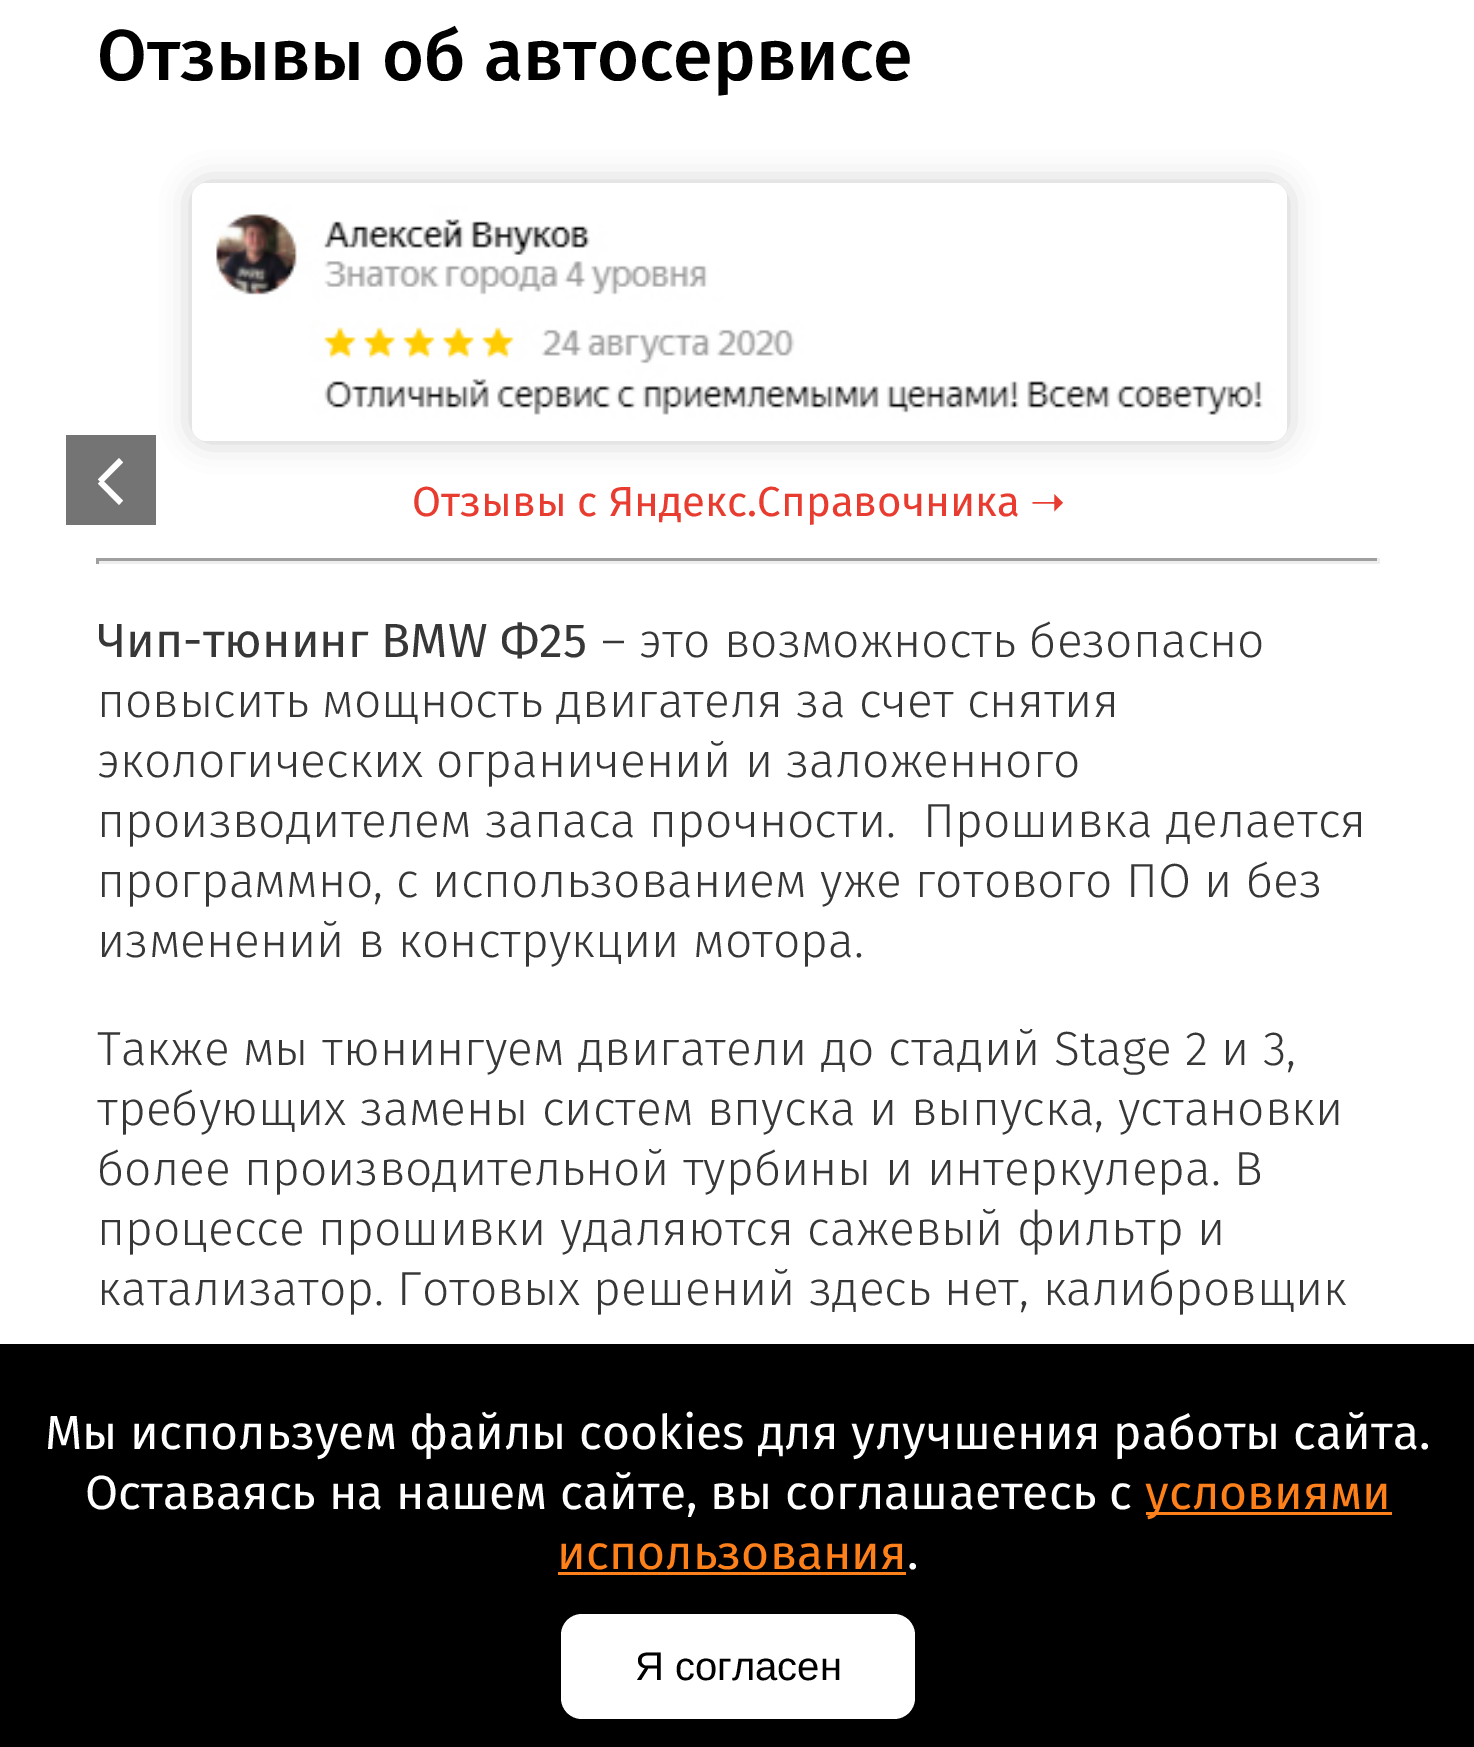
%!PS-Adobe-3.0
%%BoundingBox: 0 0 1474 1747
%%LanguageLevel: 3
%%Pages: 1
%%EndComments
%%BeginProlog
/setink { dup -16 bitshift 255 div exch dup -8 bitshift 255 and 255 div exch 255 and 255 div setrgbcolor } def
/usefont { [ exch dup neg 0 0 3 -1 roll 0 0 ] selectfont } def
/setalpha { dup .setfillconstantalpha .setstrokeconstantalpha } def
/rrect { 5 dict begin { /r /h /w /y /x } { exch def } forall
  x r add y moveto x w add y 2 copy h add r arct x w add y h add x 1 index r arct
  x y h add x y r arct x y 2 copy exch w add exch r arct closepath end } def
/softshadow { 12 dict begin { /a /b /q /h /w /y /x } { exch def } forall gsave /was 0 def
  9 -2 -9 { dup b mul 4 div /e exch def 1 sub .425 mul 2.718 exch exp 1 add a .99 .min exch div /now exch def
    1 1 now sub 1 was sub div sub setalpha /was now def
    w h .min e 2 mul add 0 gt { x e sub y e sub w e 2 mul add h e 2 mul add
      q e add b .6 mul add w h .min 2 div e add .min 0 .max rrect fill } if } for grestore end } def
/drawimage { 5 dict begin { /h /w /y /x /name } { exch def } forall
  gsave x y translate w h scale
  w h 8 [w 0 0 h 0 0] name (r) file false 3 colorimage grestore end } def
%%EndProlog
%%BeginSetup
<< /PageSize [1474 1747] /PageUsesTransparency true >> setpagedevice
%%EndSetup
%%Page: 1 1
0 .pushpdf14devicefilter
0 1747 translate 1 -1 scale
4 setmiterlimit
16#FFFFFF setink
0 0 1474 1747 rectfill
/FiraSans-Medium 72 usefont
16#000000 setink
97 80 moveto (Отзывы об автосервисе) show
192 183 1095 258 15 15 0.2 softshadow
16#747474 setink
66 435 90 90 rectfill
16#FFFFFF setink
123 462.5 moveto 102 483.5 lineto 98 479.5 lineto 119 458 lineto closepath fill
119 505 moveto 98 483.5 lineto 102 479.5 lineto 123 500.5 lineto closepath fill
(img1.raw) 192 183 1095 258 drawimage
/FiraSans-Regular 42 usefont
16#E73C2F setink
412 516 moveto (Отзывы с Яндекс.Справочника) show
/DejaVuSans-Regular 42 usefont
1030 516 moveto (➝) show
[
    [96 558 1284 3 16#9F9F9F]
    [1377 558 3 6 16#EEEEEE]
    [96 561 1284 3 16#EEEEEE]
    [96 558 3 6 16#9F9F9F]
] { aload pop setink rectfill } forall
/FiraSans-Regular 48 usefont
16#373737 setink
97 657 moveto (Чип-тюнинг BMW Ф25) show
/FiraSans-Light 48 usefont
[
    [(– это возможность безопасно) 601 657]
    [(повысить мощность двигателя за счет снятия) 97 717]
    [(экологических ограничений и заложенного) 97 777]
    [(производителем запаса прочности.  Прошивка делается) 97 837]
    [(программно, с использованием уже готового ПО и без) 97 897]
    [(изменений в конструкции мотора.) 97 957]
    [(Также мы тюнингуем двигатели до стадий Stage 2 и 3,) 97 1065]
    [(требующих замены систем впуска и выпуска, установки) 97 1125]
    [(более производительной турбины и интеркулера. В) 97 1185]
    [(процессе прошивки удаляются сажевый фильтр и) 97 1245]
    [(катализатор. Готовых решений здесь нет, калибровщик) 97 1305]
] { aload pop moveto show } forall
16#000000 setink
0 1344 1474 403 rectfill
/FiraSans-Regular 48 usefont
16#FFFFFF setink
45 1449 moveto (Мы используем файлы cookies для улучшения работы сайта.) show
85 1509 moveto (Оставаясь на нашем сайте, вы соглашаетесь с) show
16#FD801B setink
1146 1512 246 3 rectfill
1145 1509 moveto (условиями) show
557 1569 moveto (использования) show
16#FFFFFF setink
907 1569 moveto (.) show
16#FD801B setink
558 1572 348 3 rectfill
16#FFFFFF setink
561 1614 354 105 21 rrect fill
/LiberationSans-Regular 40 usefont
16#000000 setink
635 1680 moveto (Я согласен) show
.poppdf14devicefilter showpage
%%EOF
